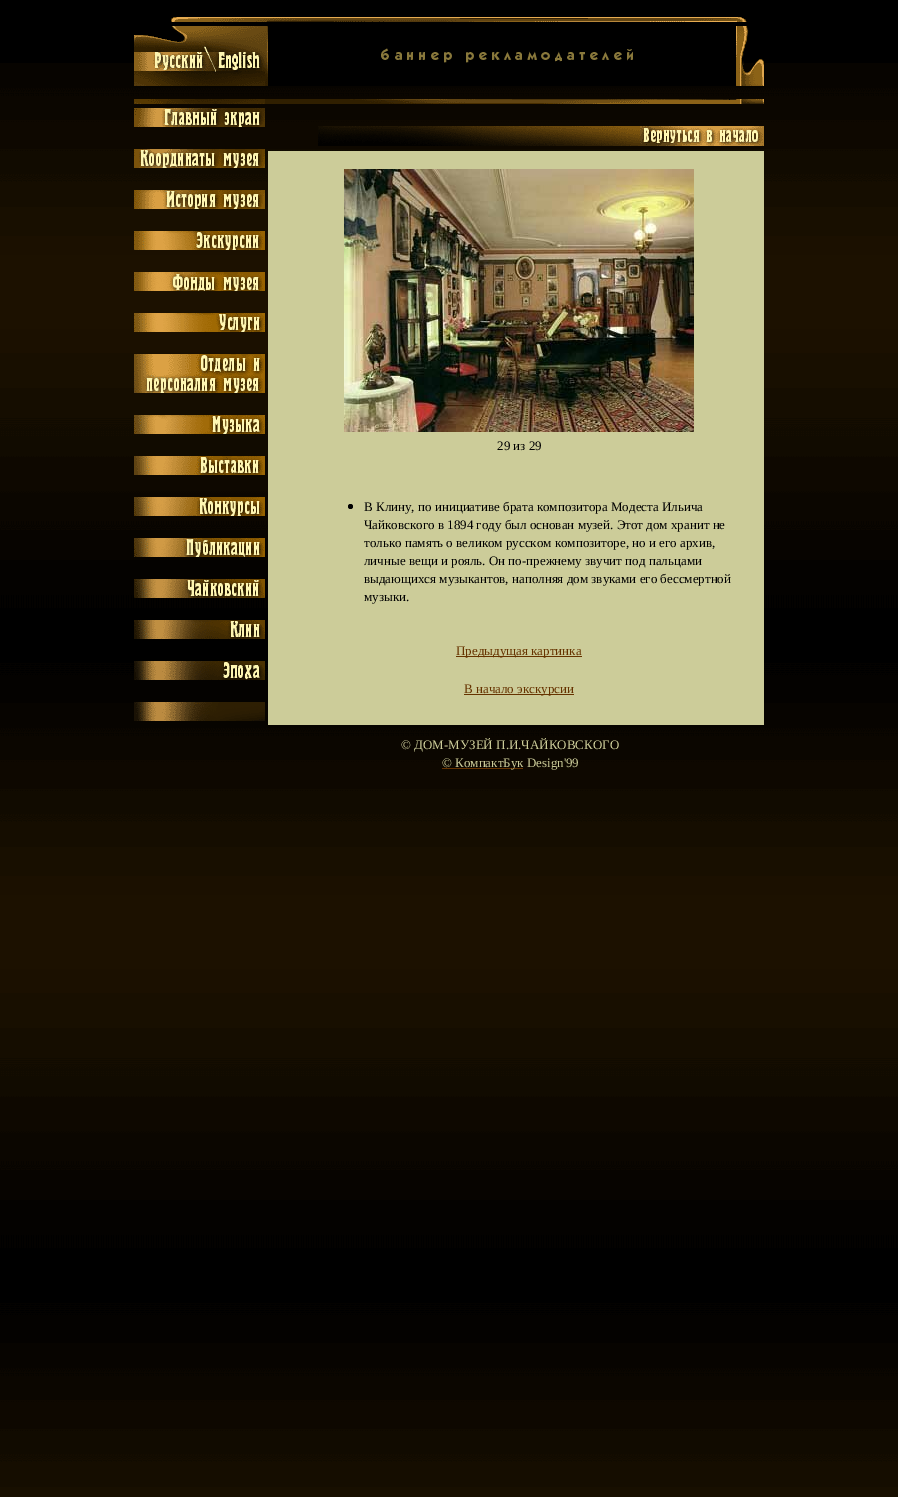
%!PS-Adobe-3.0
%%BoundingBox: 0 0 898 1497
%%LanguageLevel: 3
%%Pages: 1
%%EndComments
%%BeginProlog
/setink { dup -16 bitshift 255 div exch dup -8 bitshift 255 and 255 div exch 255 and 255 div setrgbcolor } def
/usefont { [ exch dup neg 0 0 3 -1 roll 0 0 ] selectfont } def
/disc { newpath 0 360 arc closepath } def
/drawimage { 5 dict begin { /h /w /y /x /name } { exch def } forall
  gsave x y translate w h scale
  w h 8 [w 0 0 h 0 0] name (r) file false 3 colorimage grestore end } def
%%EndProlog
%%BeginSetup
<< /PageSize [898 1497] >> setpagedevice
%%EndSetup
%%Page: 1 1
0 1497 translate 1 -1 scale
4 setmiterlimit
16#000000 setink
0 0 898 1497 rectfill
(img1.raw) 0 63 898 1434 drawimage
(img2.raw) 171 17 576 5 drawimage
(img3.raw) 134 26 134 60 drawimage
(img4.raw) 268 48 468 38 drawimage
(img5.raw) 736 26 28 60 drawimage
(img6.raw) 134 99 630 5 drawimage
(img7.raw) 134 108 131 19 drawimage
(img8.raw) 134 149 131 19 drawimage
(img9.raw) 134 190 131 19 drawimage
(img10.raw) 134 231 131 19 drawimage
(img11.raw) 134 272 131 19 drawimage
(img12.raw) 134 313 131 19 drawimage
(img13.raw) 134 354 131 39 drawimage
(img14.raw) 134 415 131 19 drawimage
(img15.raw) 134 456 131 19 drawimage
(img16.raw) 134 497 131 19 drawimage
(img17.raw) 134 538 131 19 drawimage
(img18.raw) 134 579 131 19 drawimage
(img19.raw) 134 620 131 19 drawimage
(img20.raw) 134 661 131 19 drawimage
(img21.raw) 134 702 131 19 drawimage
(img22.raw) 318 126 322 20 drawimage
(img23.raw) 640 126 124 20 drawimage
16#CCCC99 setink
268 151 496 574 rectfill
(img24.raw) 344 169 350 263 drawimage
/LiberationSerif-Regular 13 usefont
16#000000 setink
497 450 moveto (29 из 29) show
350.5 506.5 2.5 disc fill
[
    [(В Клину, по инициативе брата композитора Модеста Ильича) 364 511]
    [(Чайковского в 1894 году был основан музей. Этот дом хранит не) 364 529]
    [(только память о великом русском композиторе, но и его архив,) 364 547]
    [(личные вещи и рояль. Он по-прежнему звучит под пальцами) 364 565]
    [(выдающихся музыкантов, наполняя дом звуками его бессмертной) 364 583]
    [(музыки.) 364 601]
] { aload pop moveto show } forall
16#663300 setink
456 656 126 1 rectfill
456 655 moveto (Предыдущая картинка) show
464 694 110 1 rectfill
464 693 moveto (В начало экскурсии) show
16#CCCC99 setink
401 749 moveto (© ДОМ-МУЗЕЙ П.И.ЧАЙКОВСКОГО) show
16#663300 setink
442 768 81 1 rectfill
16#CCCC99 setink
442 767 moveto (© КомпактБук Design'99) show
showpage
%%EOF
